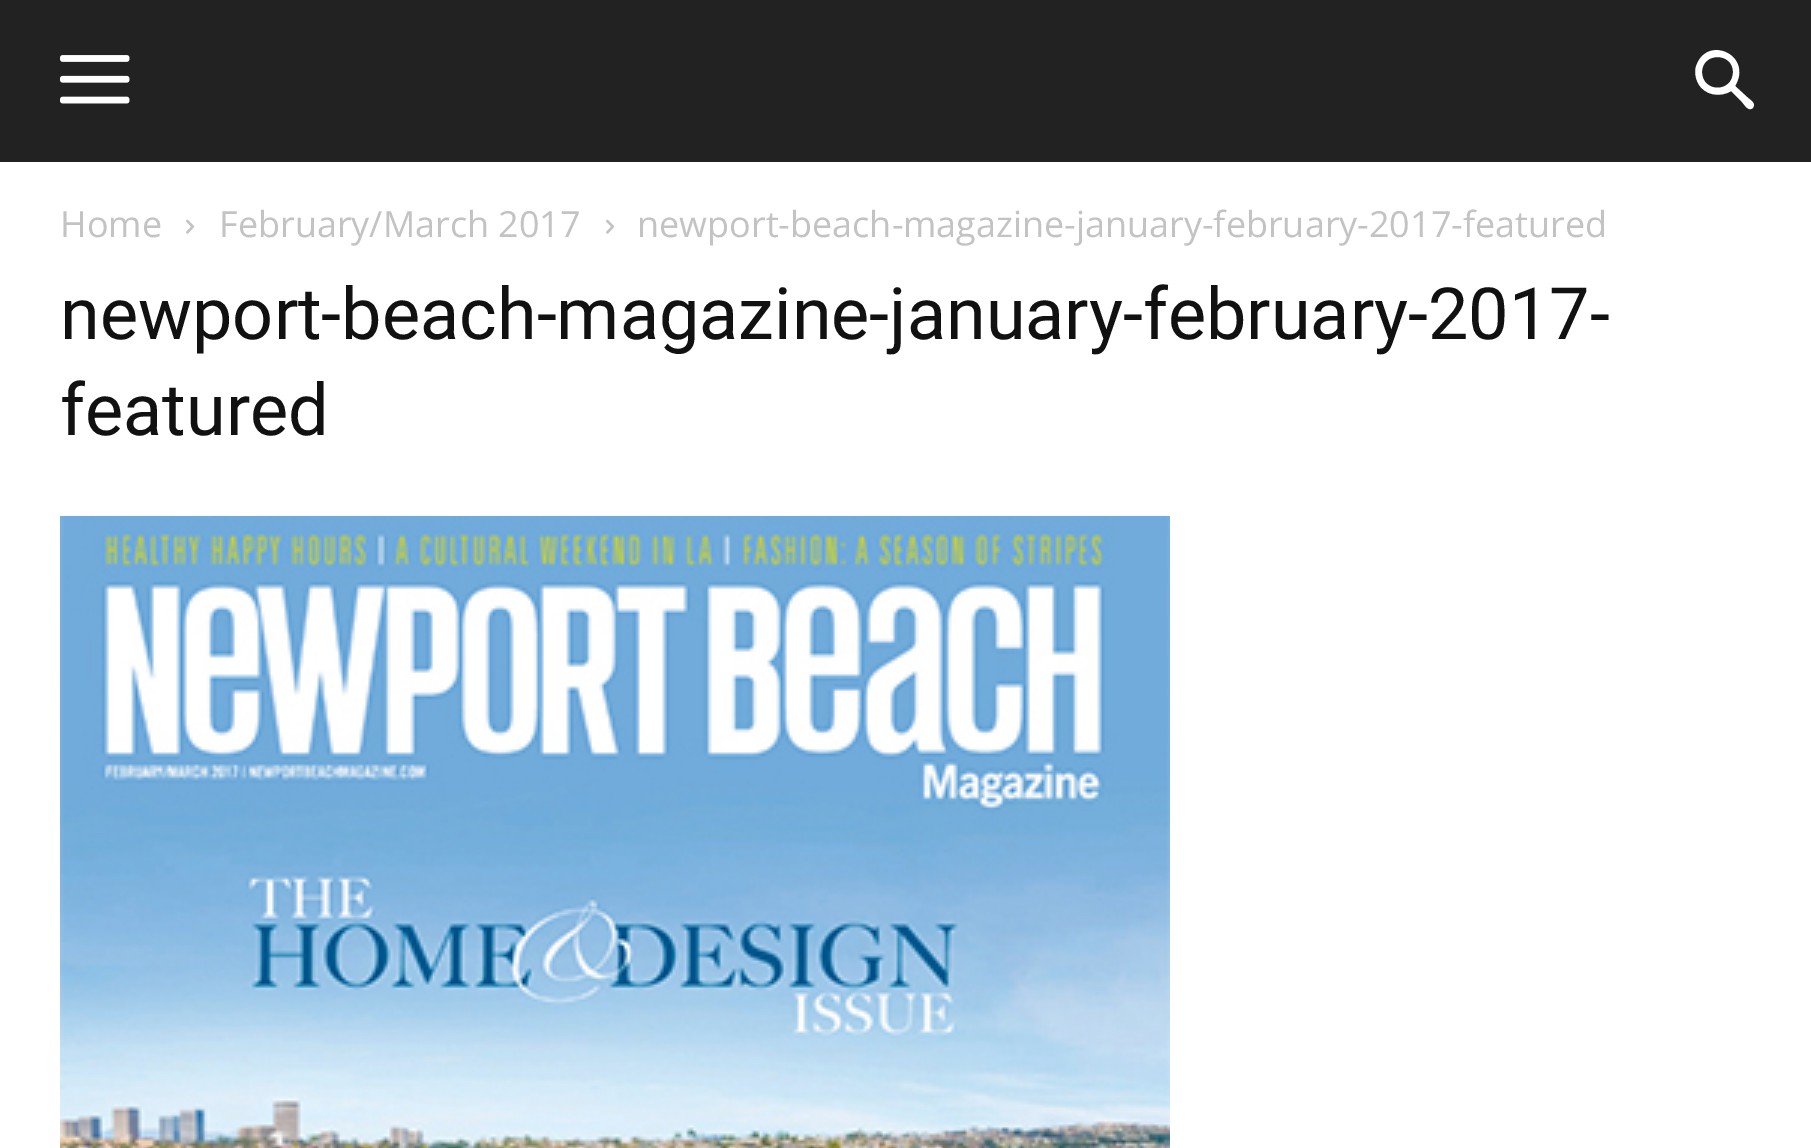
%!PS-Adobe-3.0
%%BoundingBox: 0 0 1811 1148
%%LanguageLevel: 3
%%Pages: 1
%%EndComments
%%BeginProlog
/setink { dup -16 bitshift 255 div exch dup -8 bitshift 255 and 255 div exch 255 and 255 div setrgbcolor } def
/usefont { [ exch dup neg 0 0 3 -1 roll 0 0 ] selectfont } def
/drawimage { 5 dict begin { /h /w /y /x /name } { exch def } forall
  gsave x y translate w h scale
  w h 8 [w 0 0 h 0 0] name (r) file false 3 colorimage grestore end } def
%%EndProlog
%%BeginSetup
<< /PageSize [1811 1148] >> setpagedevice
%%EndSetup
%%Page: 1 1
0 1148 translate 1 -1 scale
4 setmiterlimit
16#FFFFFF setink
0 0 1811 1148 rectfill
16#222222 setink
0 0 1811 162 rectfill
(img1.raw) 60 55 70 49 drawimage
16#FFFFFF setink
1733 72 moveto 1733 93 1702 93 1702 72 curveto 1702 52 1733 52 1733 72 curveto closepath 1754 105 moveto 1754 102 1749 99 1747 97 curveto 1735 86 lineto 1753 56 1709 35 1697 64 curveto 1694 70 1695 77 1698 83 curveto 1704 95 1720 98 1731 91 curveto 1742 102 lineto 1744 104 1747 110 1751 109 curveto 1752 109 1754 107 1754 105 curveto closepath fill
/OpenSans-Regular 36 usefont
16#C3C3C3 setink
60 237 moveto (Home) show
(img2.raw) 186 219 9 15 drawimage
219 237 moveto (February/March 2017) show
(img2.raw) 606 219 9 15 drawimage
637 237 moveto (newport-beach-magazine-january-february-2017-featured) show
/Roboto-Regular 72 usefont
16#111111 setink
60 339 moveto (newport-beach-magazine-january-february-2017-) show
60 435 moveto (featured) show
(img3.raw) 60 516 1110 632 drawimage
showpage
%%EOF
